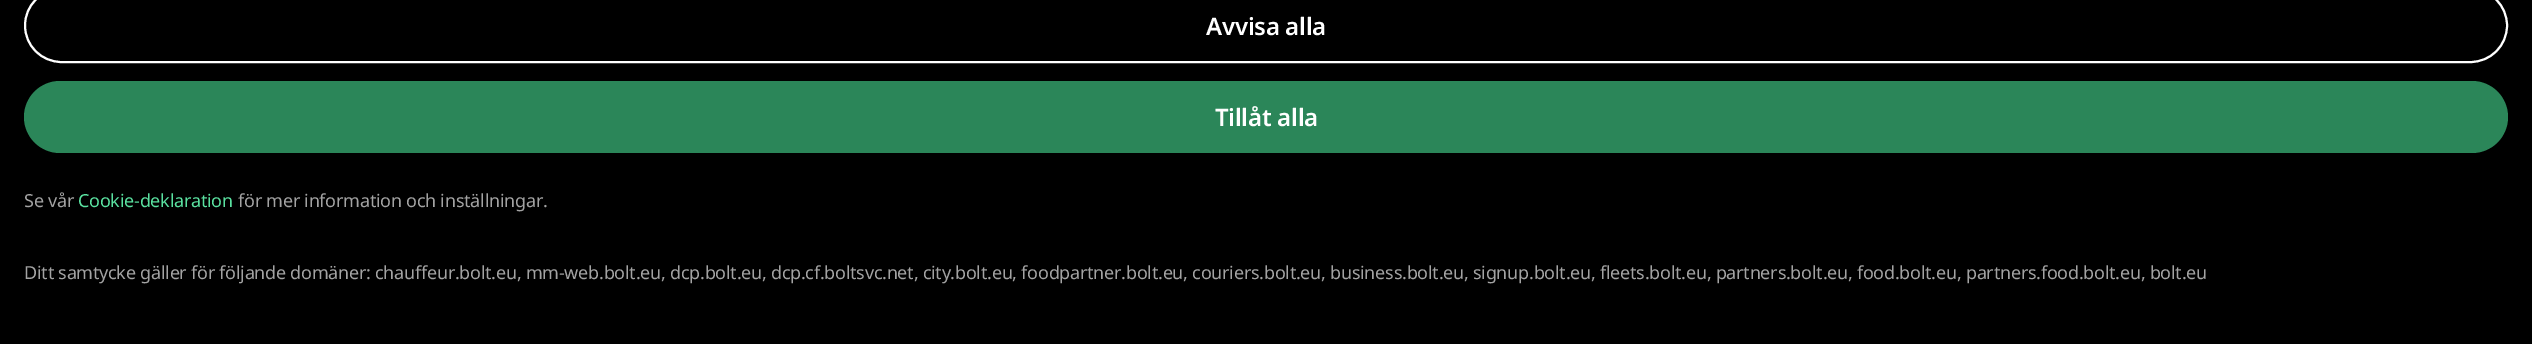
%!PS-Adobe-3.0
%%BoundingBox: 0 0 2532 344
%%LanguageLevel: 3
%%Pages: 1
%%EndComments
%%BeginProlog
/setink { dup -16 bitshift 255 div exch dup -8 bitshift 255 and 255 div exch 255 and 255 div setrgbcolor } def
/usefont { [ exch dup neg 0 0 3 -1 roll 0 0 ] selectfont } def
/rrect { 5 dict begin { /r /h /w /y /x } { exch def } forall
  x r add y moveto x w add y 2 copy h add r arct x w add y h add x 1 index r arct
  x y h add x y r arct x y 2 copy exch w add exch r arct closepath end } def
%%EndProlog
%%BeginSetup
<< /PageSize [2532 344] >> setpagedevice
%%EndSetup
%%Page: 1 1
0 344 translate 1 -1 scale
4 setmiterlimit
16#000000 setink
0 0 2532 344 rectfill
16#FFFFFF setink
2 setlinewidth
25 -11 2482 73 36.5 rrect stroke
/NotoSans-SemiBold 24 usefont
1206 35 moveto -0.26 0 (Avvisa alla) ashow
16#2B8659 setink
24 81 2484 72 36 rrect fill
16#FFFFFF setink
1215 126 moveto -0.26 0 (Tillåt alla) ashow
/NotoSans-Regular 18 usefont
16#A3A3A3 setink
24 207 moveto -0.26 0 (Se vår) ashow
16#5AE1A0 setink
78 207 moveto -0.26 0 (Cookie-deklaration) ashow
16#A3A3A3 setink
238 207 moveto -0.26 0 (för mer information och inställningar.) ashow
24 279 moveto -0.26 0 (Ditt samtycke gäller för följande domäner: chauffeur.bolt.eu, mm-web.bolt.eu, dcp.bolt.eu, dcp.cf.boltsvc.net, city.bolt.eu, foodpartner.bolt.eu, couriers.bolt.eu, business.bolt.eu, signup.bolt.eu, fleets.bolt.eu, partners.bolt.eu, food.bolt.eu, partners.food.bolt.eu, bolt.eu) ashow
showpage
%%EOF
